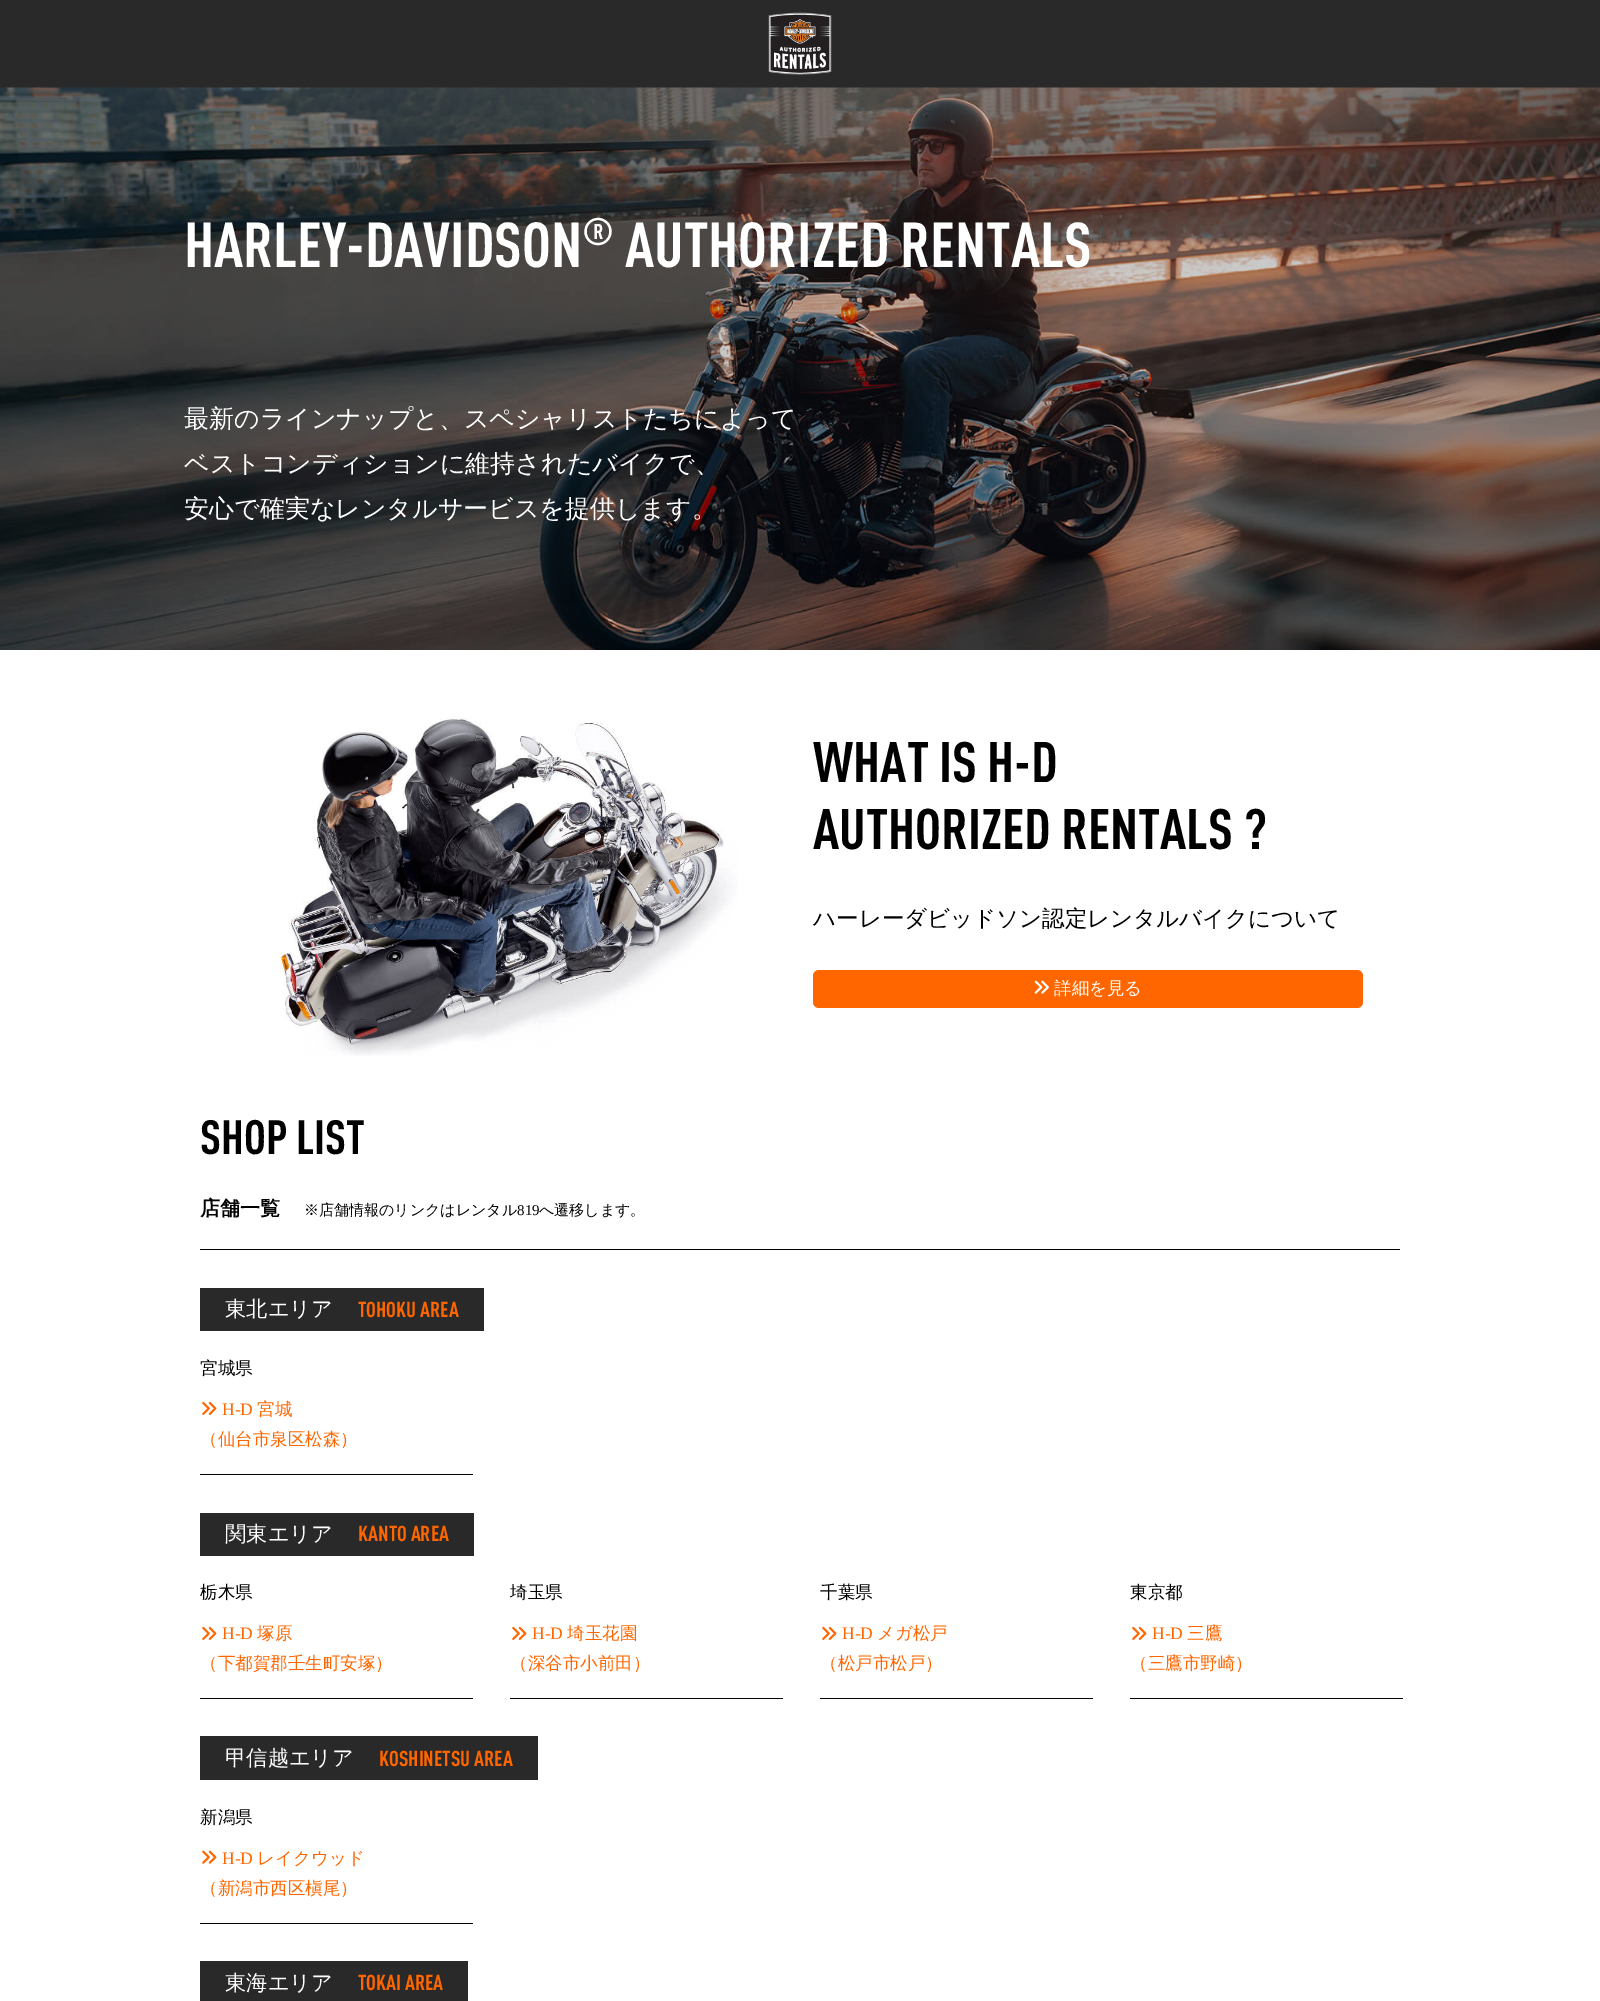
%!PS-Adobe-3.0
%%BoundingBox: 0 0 1600 2001
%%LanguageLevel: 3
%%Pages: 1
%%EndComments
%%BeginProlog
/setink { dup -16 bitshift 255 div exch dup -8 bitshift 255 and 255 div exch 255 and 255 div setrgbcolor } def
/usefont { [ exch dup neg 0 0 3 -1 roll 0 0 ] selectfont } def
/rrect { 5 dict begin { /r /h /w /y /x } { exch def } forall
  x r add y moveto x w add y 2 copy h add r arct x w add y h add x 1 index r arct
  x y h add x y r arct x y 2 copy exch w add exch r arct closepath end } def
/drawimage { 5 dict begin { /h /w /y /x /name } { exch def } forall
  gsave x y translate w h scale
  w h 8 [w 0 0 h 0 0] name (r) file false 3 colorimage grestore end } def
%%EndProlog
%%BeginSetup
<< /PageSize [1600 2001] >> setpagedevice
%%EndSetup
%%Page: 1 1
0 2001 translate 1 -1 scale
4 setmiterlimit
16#FFFFFF setink
0 0 1600 2001 rectfill
16#292929 setink
0 0 1600 88 rectfill
(img1.raw) 768 12 64 63 drawimage
(img2.raw) 0 87 1600 563 drawimage
/DIN-Bold 62.5 usefont
16#FFFFFF setink
184 267 moveto (HARLEY-DAVIDSON) show
/DIN-Bold 38 usefont
582 245 moveto (®) show
/DIN-Bold 62.5 usefont
625 267 moveto (AUTHORIZED RENTALS) show
/WenQuanYiZenHei-Medium 25 usefont
[
    [(最新のラインナップと、スペシャリストたちによって) 184 427]
    [(ベストコンディションに維持されたバイクで、) 184 472]
    [(安心で確実なレンタルサービスを提供します。) 184 517]
] { aload pop moveto show } forall
(img3.raw) 280 717 458 339 drawimage
/DIN-Bold 56.25 usefont
16#000000 setink
813 782 moveto (WHAT IS H-D) show
813 849 moveto (AUTHORIZED RENTALS ?) show
/WenQuanYiZenHei-Medium 22.5 usefont
813 926 moveto (ハーレーダビッドソン認定レンタルバイクについて) show
16#FF6600 setink
813 970 550 38 6 rrect fill
(img4.raw) 1034 980 15 14 drawimage
/WenQuanYiZenHei-Medium 17.5 usefont
16#FFFFFF setink
1054 994 moveto (詳細を見る) show
16#000000 setink
200 1249 1200 1 rectfill
/DIN-Bold 47.5 usefont
200 1154 moveto (SHOP LIST) show
/WenQuanYiZenHei-Bold 20 usefont
200 1215 moveto (店舗一覧) show
/WenQuanYiZenHei-Medium 15 usefont
304 1215 moveto (※店舗情報のリンクはレンタル) show
/LiberationSerif-Regular 15 usefont
517 1215 moveto (819) show
/WenQuanYiZenHei-Medium 15 usefont
539 1215 moveto (へ遷移します。) show
16#292929 setink
200 1288 284 43 rectfill
/WenQuanYiZenHei-Medium 21.25 usefont
16#FFFFFF setink
225 1316 moveto (東北エリア) show
/DIN-Bold 21.25 usefont
16#FF6600 setink
358 1317 moveto (TOHOKU AREA) show
16#000000 setink
200 1474 273 1 rectfill
/WenQuanYiZenHei-Medium 17.5 usefont
200 1374 moveto (宮城県) show
(img5.raw) 202 1401 15 14 drawimage
/LiberationSerif-Regular 17.5 usefont
16#FF6600 setink
222 1415 moveto (H-D) show
/WenQuanYiZenHei-Medium 17.5 usefont
257 1415 moveto (宮城) show
200 1445 moveto (（仙台市泉区松森）) show
16#292929 setink
200 1513 274 43 rectfill
/WenQuanYiZenHei-Medium 21.25 usefont
16#FFFFFF setink
225 1541 moveto (関東エリア) show
/DIN-Bold 21.25 usefont
16#FF6600 setink
358 1541 moveto (KANTO AREA) show
16#000000 setink
200 1698 273 1 rectfill
/WenQuanYiZenHei-Medium 17.5 usefont
200 1598 moveto (栃木県) show
(img5.raw) 202 1626 15 14 drawimage
/LiberationSerif-Regular 17.5 usefont
16#FF6600 setink
222 1639 moveto (H-D) show
/WenQuanYiZenHei-Medium 17.5 usefont
257 1639 moveto (塚原) show
200 1669 moveto (（下都賀郡壬生町安塚）) show
16#000000 setink
510 1698 273 1 rectfill
510 1598 moveto (埼玉県) show
(img5.raw) 512 1626 15 14 drawimage
/LiberationSerif-Regular 17.5 usefont
16#FF6600 setink
532 1639 moveto (H-D) show
/WenQuanYiZenHei-Medium 17.5 usefont
567 1639 moveto (埼玉花園) show
510 1669 moveto (（深谷市小前田）) show
16#000000 setink
820 1698 273 1 rectfill
820 1598 moveto (千葉県) show
(img5.raw) 822 1626 15 14 drawimage
/LiberationSerif-Regular 17.5 usefont
16#FF6600 setink
842 1639 moveto (H-D) show
/WenQuanYiZenHei-Medium 17.5 usefont
877 1639 moveto (メガ松戸) show
820 1669 moveto (（松戸市松戸）) show
16#000000 setink
1130 1698 273 1 rectfill
1130 1598 moveto (東京都) show
(img5.raw) 1132 1626 15 14 drawimage
/LiberationSerif-Regular 17.5 usefont
16#FF6600 setink
1152 1639 moveto (H-D) show
/WenQuanYiZenHei-Medium 17.5 usefont
1187 1639 moveto (三鷹) show
1130 1669 moveto (（三鷹市野崎）) show
16#292929 setink
200 1736 338 44 rectfill
/WenQuanYiZenHei-Medium 21.25 usefont
16#FFFFFF setink
225 1765 moveto (甲信越エリア) show
/DIN-Bold 21.25 usefont
16#FF6600 setink
379 1766 moveto (KOSHINETSU AREA) show
/WenQuanYiZenHei-Medium 17.5 usefont
16#000000 setink
200 1823 moveto (新潟県) show
200 1923 273 1 rectfill
(img6.raw) 202 1850 15 14 drawimage
/LiberationSerif-Regular 17.5 usefont
16#FF6600 setink
222 1864 moveto (H-D) show
/WenQuanYiZenHei-Medium 17.5 usefont
257 1864 moveto (レイクウッド) show
200 1894 moveto (（新潟市西区槇尾）) show
16#292929 setink
200 1961 268 40 rectfill
/WenQuanYiZenHei-Medium 21.25 usefont
16#FFFFFF setink
225 1990 moveto (東海エリア) show
/DIN-Bold 21.25 usefont
16#FF6600 setink
358 1990 moveto (TOKAI AREA) show
showpage
%%EOF
